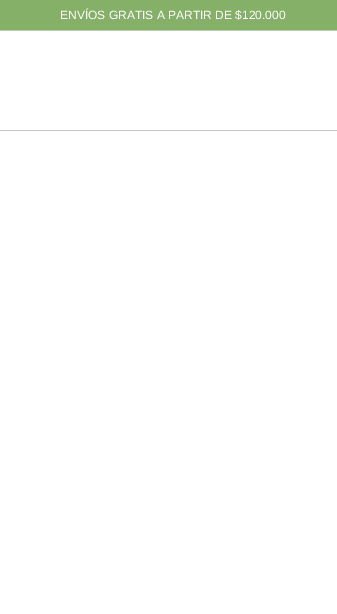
%!PS-Adobe-3.0
%%BoundingBox: 0 0 337 614
%%LanguageLevel: 3
%%Pages: 1
%%EndComments
%%BeginProlog
/setink { dup -16 bitshift 255 div exch dup -8 bitshift 255 and 255 div exch 255 and 255 div setrgbcolor } def
/usefont { [ exch dup neg 0 0 3 -1 roll 0 0 ] selectfont } def
%%EndProlog
%%BeginSetup
<< /PageSize [337 614] >> setpagedevice
%%EndSetup
%%Page: 1 1
0 614 translate 1 -1 scale
4 setmiterlimit
16#FFFFFF setink
0 0 337 614 rectfill
16#84B067 setink
0 0 337 30 rectfill
16#C5C5C5 setink
0 30 337 1 rectfill
/LiberationSans-Regular 12 usefont
16#FFFFFF setink
60 19 moveto (ENVÍOS GRATIS A PARTIR DE $120.000) show
16#C5C5C5 setink
0 130 337 1 rectfill
showpage
%%EOF
